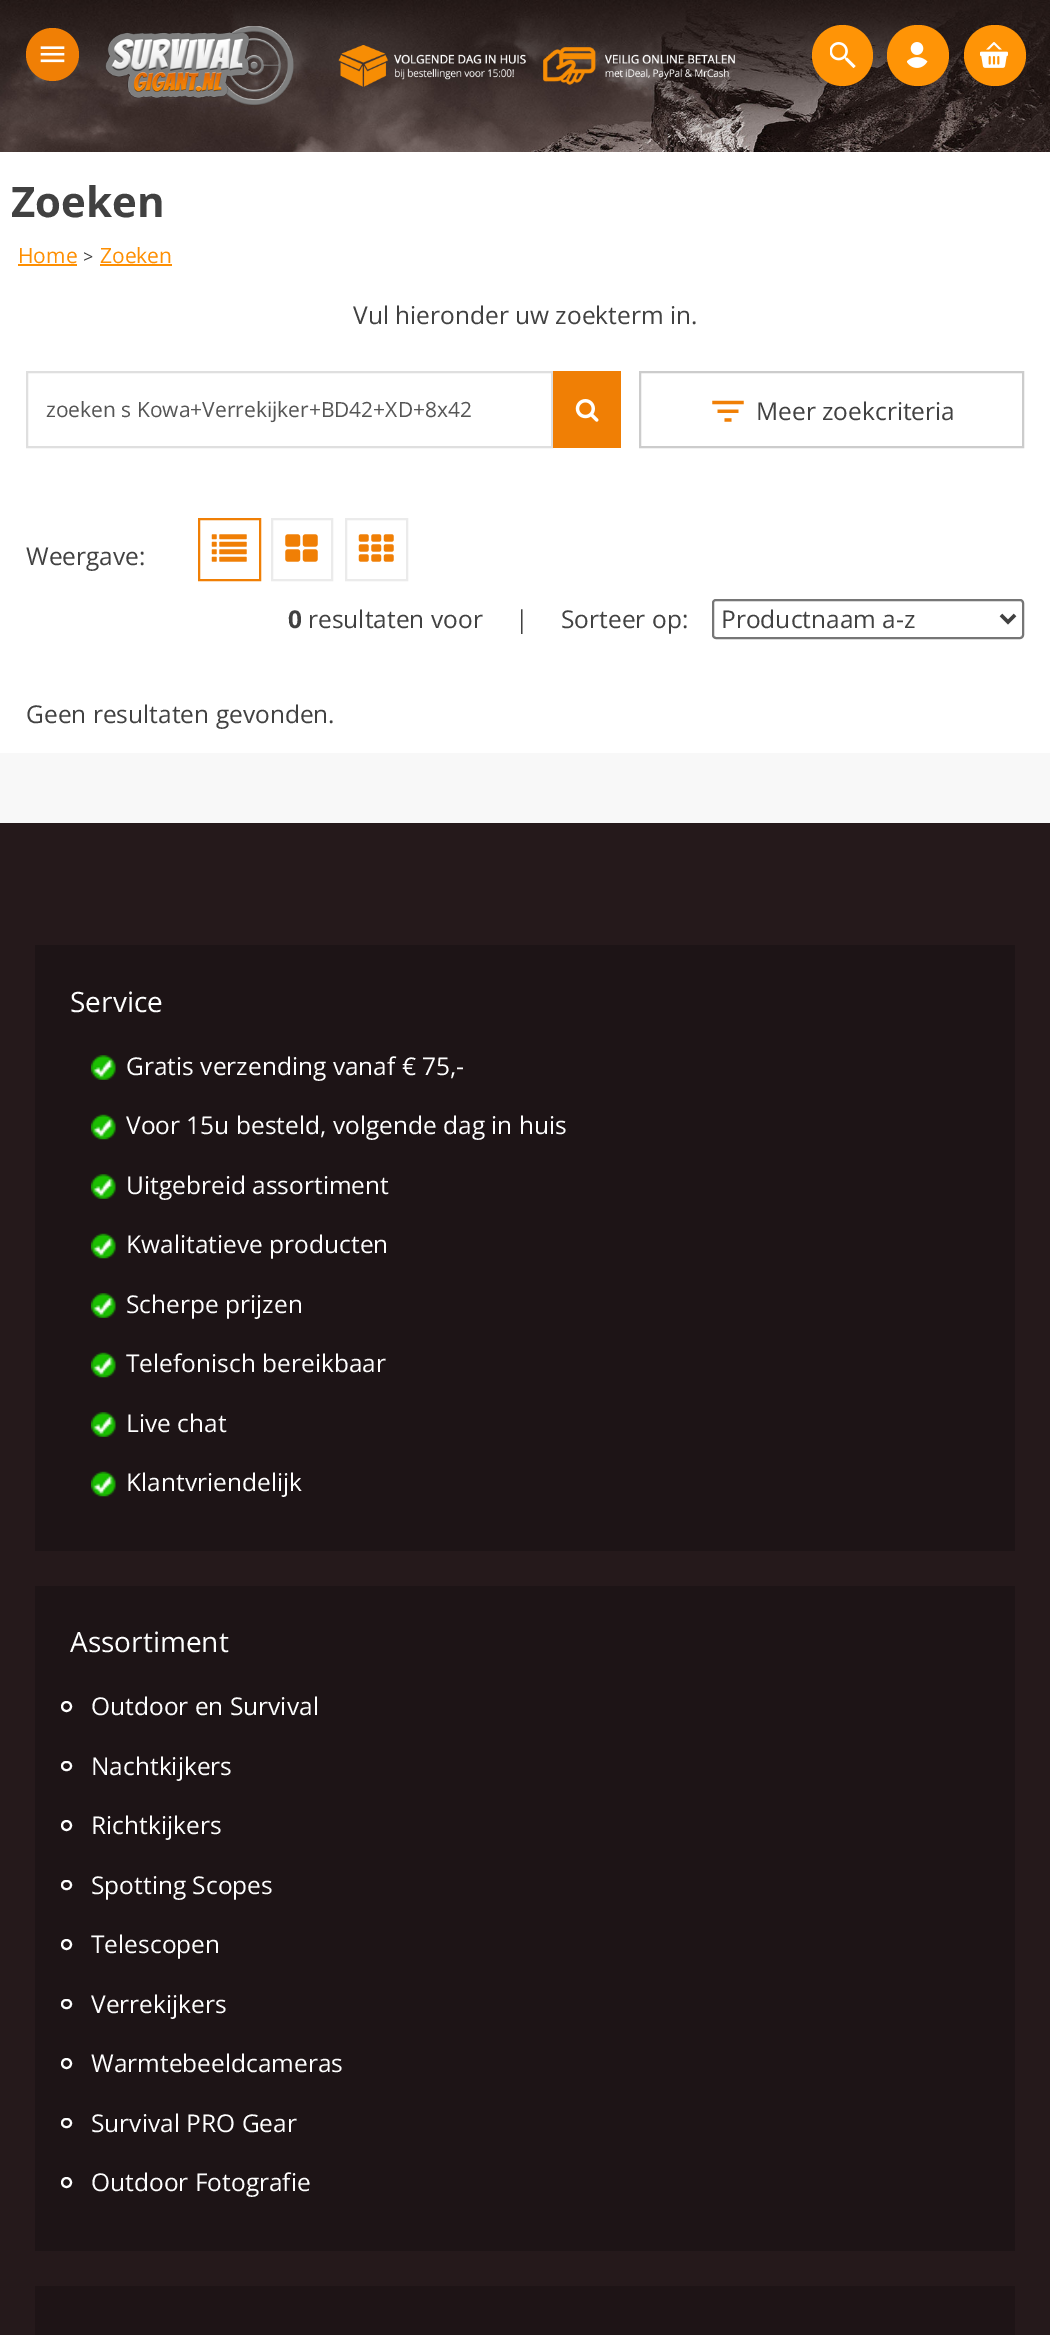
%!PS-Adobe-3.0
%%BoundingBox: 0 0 1050 2335
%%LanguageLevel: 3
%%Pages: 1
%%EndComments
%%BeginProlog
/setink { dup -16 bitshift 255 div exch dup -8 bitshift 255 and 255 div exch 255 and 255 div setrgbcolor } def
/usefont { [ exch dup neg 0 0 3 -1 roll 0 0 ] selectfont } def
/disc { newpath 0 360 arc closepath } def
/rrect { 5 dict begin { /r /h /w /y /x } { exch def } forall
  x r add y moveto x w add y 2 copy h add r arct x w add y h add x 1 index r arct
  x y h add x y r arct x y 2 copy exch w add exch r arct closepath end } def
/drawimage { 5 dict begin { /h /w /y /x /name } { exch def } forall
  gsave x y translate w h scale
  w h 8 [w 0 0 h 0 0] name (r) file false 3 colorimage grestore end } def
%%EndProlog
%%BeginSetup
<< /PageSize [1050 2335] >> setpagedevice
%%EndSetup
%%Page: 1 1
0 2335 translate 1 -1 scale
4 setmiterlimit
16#F8F8F8 setink
0 0 1050 2335 rectfill
(img1.raw) 0 0 1050 152 drawimage
(img2.raw) 105 26 630 79 drawimage
16#F07F05 setink
52.5 54.5 26.5 disc fill
(img3.raw) 40 46 25 17 drawimage
16#FF9406 setink
842.5 55.5 30.5 disc fill
(img4.raw) 830 42 26 26 drawimage
887 25 62 61 30.5 rrect fill
(img5.raw) 907 42 21 26 drawimage
964 25 62 61 30.5 rrect fill
(img6.raw) 980 42 28 26 drawimage
16#FFFFFF setink
0 152 1050 601 rectfill
/OpenSans-Bold 42 usefont
16#414141 setink
11 217 moveto (Zoeken) show
/OpenSans-Regular 21 usefont
16#FE8F02 setink
18 263 moveto (Home) show
18 264 59 2 rectfill
/OpenSans-Regular 18 usefont
16#414141 setink
83 263 moveto (>) show
/OpenSans-Regular 21 usefont
16#FE8F02 setink
100 263 moveto (Zoeken) show
100 264 72 2 rectfill
/OpenSans-Regular 24.5 usefont
16#414141 setink
353 324 moveto (Vul hieronder uw zoekterm in.) show
16#DFDFDF setink
2 setlinewidth
27 372 525 75 rectstroke
/OpenSans-Regular 21 usefont
16#555555 setink
46 417 moveto (zoeken s Kowa+Verrekijker+BD42+XD+8x42) show
16#F07F05 setink
553 371 68 77 rectfill
(img7.raw) 575 399 24 23 drawimage
16#CCCCCC setink
640 372 383 75 rectstroke
(img8.raw) 712 400 32 22 drawimage
/OpenSans-Regular 24.5 usefont
16#414141 setink
756 420 moveto (Meer zoekcriteria) show
26 565 moveto (Weergave:) show
16#F07F05 setink
199 519 61 61 rectstroke
(img9.raw) 211 534 36 28 drawimage
16#EBEBEB setink
272 519 60 61 rectstroke
(img10.raw) 285 534 33 28 drawimage
346 519 61 61 rectstroke
(img11.raw) 358 534 36 28 drawimage
/OpenSans-Bold 24.5 usefont
16#414141 setink
288 628 moveto (0) show
/OpenSans-Regular 24.5 usefont
[
    [(resultaten voor) 308 628]
    [(|) 515 628]
    [(Sorteer op:) 561 628]
] { aload pop moveto show } forall
16#767676 setink
713 600 310 38 3 rrect stroke
16#414141 setink
3.5 setlinewidth
1001 615 moveto 1008 622 lineto 1015 615 lineto stroke
721 628 moveto (Productnaam a-z) show
26 723 moveto (Geen resultaten gevonden.) show
16#25191B setink
0 823 1050 1512 rectfill
16#1D1416 setink
35 945 980 606 rectfill
/OpenSans-Regular 28 usefont
16#FFFFFF setink
70 1012 moveto (Service) show
(img12.raw) 91 1055 25 25 drawimage
/OpenSans-Regular 24.5 usefont
126 1075 moveto (Gratis verzending vanaf € 75,-) show
(img13.raw) 91 1114 25 26 drawimage
126 1134 moveto (Voor 15u besteld, volgende dag in huis) show
(img12.raw) 91 1174 25 25 drawimage
126 1194 moveto (Uitgebreid assortiment) show
(img13.raw) 91 1233 25 26 drawimage
126 1253 moveto (Kwalitatieve producten) show
(img12.raw) 91 1293 25 25 drawimage
126 1313 moveto (Scherpe prijzen) show
(img13.raw) 91 1352 25 26 drawimage
126 1372 moveto (Telefonisch bereikbaar) show
(img12.raw) 91 1412 25 25 drawimage
126 1432 moveto (Live chat) show
(img13.raw) 91 1471 25 26 drawimage
126 1491 moveto (Klantvriendelijk) show
16#1D1416 setink
35 1586 980 665 rectfill
/OpenSans-Regular 28 usefont
16#FFFFFF setink
70 1652 moveto (Assortiment) show
2 setlinewidth
66.5 1706.5 4.5 disc stroke
/OpenSans-Regular 24.5 usefont
91 1715 moveto (Outdoor en Survival) show
62 1762 9 8 4 rrect stroke
91 1775 moveto (Nachtkijkers) show
66.5 1825.5 4.5 disc stroke
91 1834 moveto (Richtkijkers) show
62 1881 9 8 4 rrect stroke
91 1894 moveto (Spotting Scopes) show
66.5 1944.5 4.5 disc stroke
91 1953 moveto (Telescopen) show
62 2000 9 8 4 rrect stroke
91 2013 moveto (Verrekijkers) show
66.5 2063.5 4.5 disc stroke
91 2072 moveto (Warmtebeeldcameras) show
62 2119 9 8 4 rrect stroke
91 2132 moveto (Survival PRO Gear) show
66.5 2182.5 4.5 disc stroke
91 2191 moveto (Outdoor Fotografie) show
16#1E1416 setink
35 2286 980 49 rectfill
showpage
%%EOF
